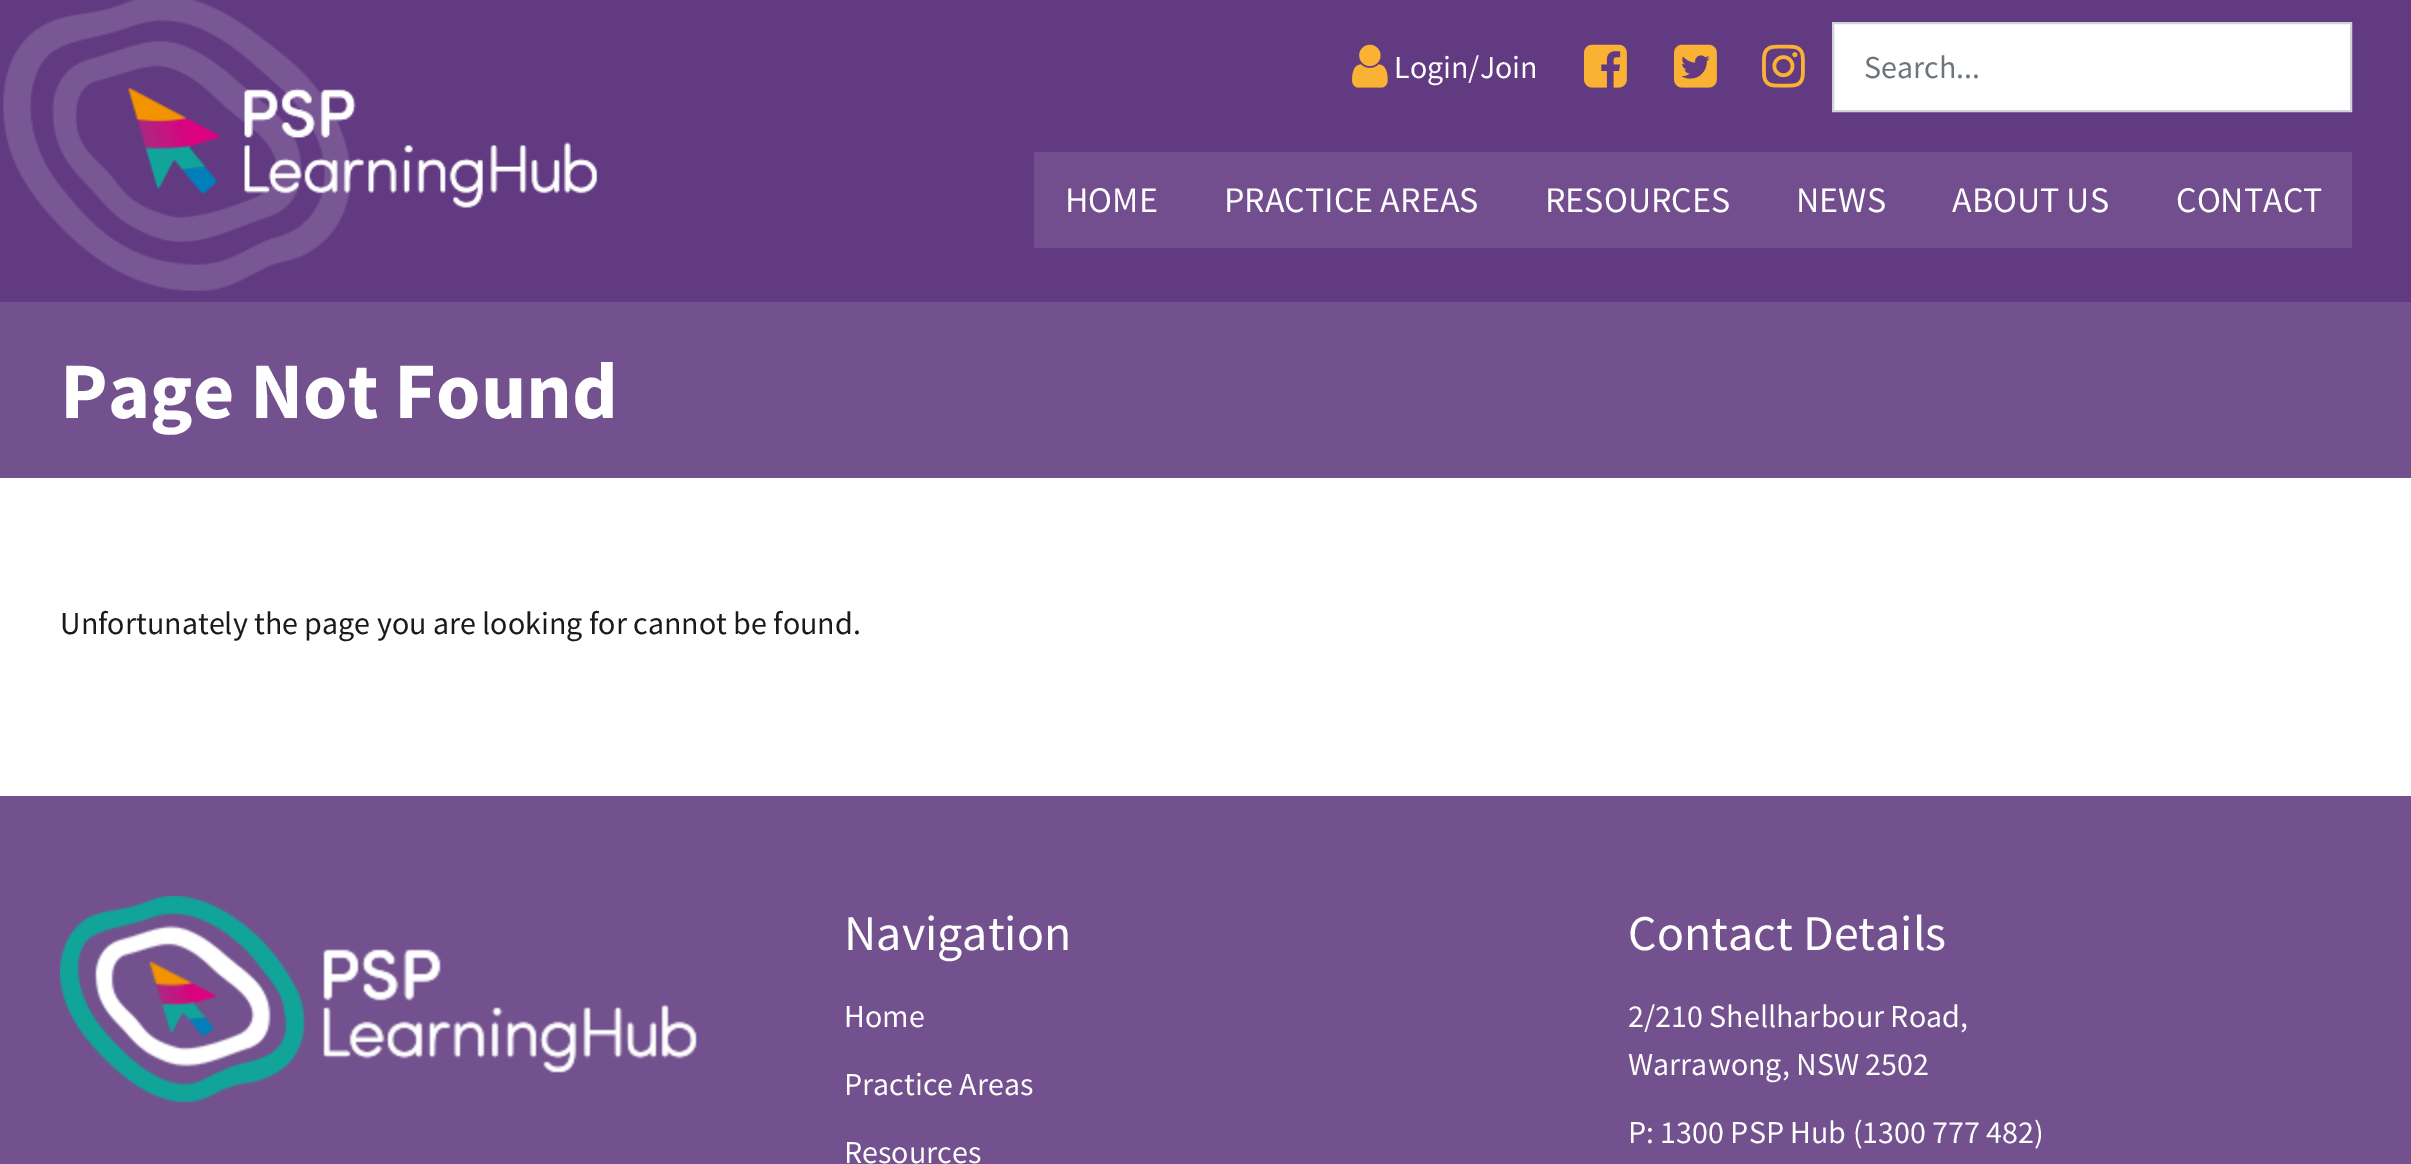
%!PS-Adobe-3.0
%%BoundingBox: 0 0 2411 1164
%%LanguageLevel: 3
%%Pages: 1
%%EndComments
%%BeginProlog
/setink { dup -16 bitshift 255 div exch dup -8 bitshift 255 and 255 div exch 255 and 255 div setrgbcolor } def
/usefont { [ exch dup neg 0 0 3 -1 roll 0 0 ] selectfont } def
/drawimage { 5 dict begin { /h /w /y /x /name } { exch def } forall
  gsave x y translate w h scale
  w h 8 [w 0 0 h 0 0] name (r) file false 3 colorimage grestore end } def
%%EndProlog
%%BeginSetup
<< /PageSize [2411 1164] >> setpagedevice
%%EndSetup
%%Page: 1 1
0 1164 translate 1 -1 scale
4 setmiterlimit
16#FFFFFF setink
0 0 2411 1164 rectfill
16#623A82 setink
0 0 2411 302 rectfill
(img1.raw) 3 0 595 291 drawimage
(img2.raw) 1352 44 36 44 drawimage
/SourceSansPro-Regular 32 usefont
16#FFFFFF setink
1394 78 moveto (Login/Join) show
(img3.raw) 1584 44 43 44 drawimage
(img4.raw) 1674 44 43 44 drawimage
(img5.raw) 1762 44 43 44 drawimage
1833 23 moveto 2351 23 lineto 2351 111 lineto 1833 111 lineto closepath gsave fill grestore
16#CED4DA setink
2 setlinewidth
stroke
16#6C757D setink
1864 78 moveto (Search...) show
16#724E8F setink
1034 152 1318 96 rectfill
/SourceSansPro-Regular 36 usefont
16#FFFFFF setink
[
    [(HOME) 1065 212]
    [(PRACTICE AREAS) 1224 212]
    [(RESOURCES) 1545 212]
    [(NEWS) 1796 212]
    [(ABOUT US) 1952 212]
    [(CONTACT) 2176 212]
] { aload pop moveto show } forall
16#72518E setink
0 302 2411 176 rectfill
/SourceSansPro-Bold 80 usefont
16#FFFFFF setink
60 418 moveto (Page Not Found) show
/SourceSansPro-Regular 32 usefont
16#1A1A1A setink
60 634 moveto (Unfortunately the page you are looking for cannot be found.) show
16#72518E setink
0 796 2411 368 rectfill
(img6.raw) 60 896 637 207 drawimage
/SourceSansPro-Regular 50 usefont
16#FFFFFF setink
844 950 moveto (Navigation) show
/SourceSansPro-Regular 32 usefont
[
    [(Home) 844 1027]
    [(Practice Areas) 844 1095]
    [(Resources) 844 1163]
] { aload pop moveto show } forall
/SourceSansPro-Regular 50 usefont
1628 950 moveto (Contact Details) show
/SourceSansPro-Regular 32 usefont
[
    [(2/210 Shellharbour Road,) 1628 1027]
    [(Warrawong, NSW 2502) 1628 1075]
    [(P: 1300 PSP Hub \(1300 777 482\)) 1628 1143]
] { aload pop moveto show } forall
showpage
%%EOF
